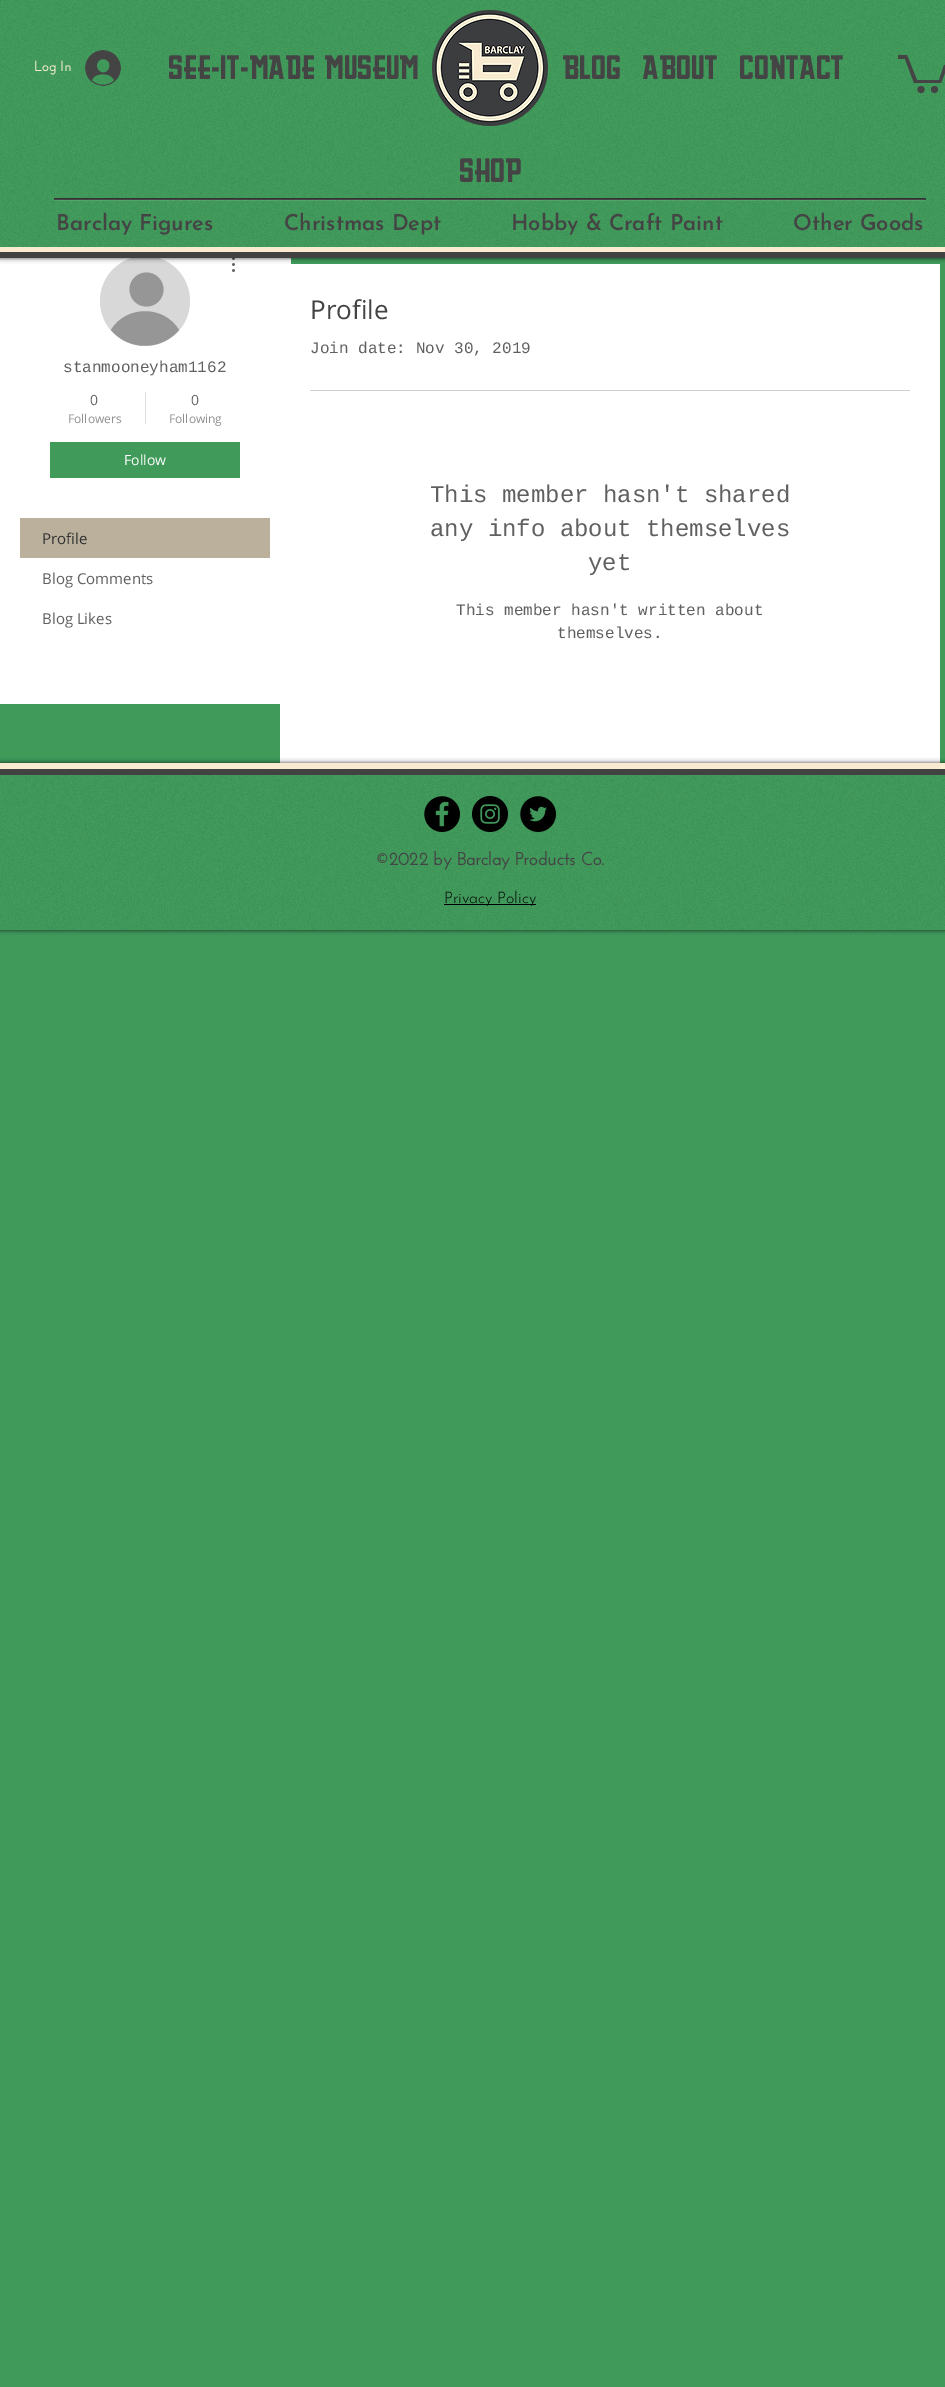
%!PS-Adobe-3.0
%%BoundingBox: 0 0 945 2387
%%LanguageLevel: 3
%%Pages: 1
%%EndComments
%%BeginProlog
/setink { dup -16 bitshift 255 div exch dup -8 bitshift 255 and 255 div exch 255 and 255 div setrgbcolor } def
/usefont { [ exch dup neg 0 0 3 -1 roll 0 0 ] selectfont } def
/setalpha { dup .setfillconstantalpha .setstrokeconstantalpha } def
/disc { newpath 0 360 arc closepath } def
/rrect { 5 dict begin { /r /h /w /y /x } { exch def } forall
  x r add y moveto x w add y 2 copy h add r arct x w add y h add x 1 index r arct
  x y h add x y r arct x y 2 copy exch w add exch r arct closepath end } def
/softshadow { 12 dict begin { /a /b /q /h /w /y /x } { exch def } forall gsave /was 0 def
  9 -2 -9 { dup b mul 4 div /e exch def 1 sub .425 mul 2.718 exch exp 1 add a .99 .min exch div /now exch def
    1 1 now sub 1 was sub div sub setalpha /was now def
    w h .min e 2 mul add 0 gt { x e sub y e sub w e 2 mul add h e 2 mul add
      q e add b .6 mul add w h .min 2 div e add .min 0 .max rrect fill } if } for grestore end } def
/drawimage { 5 dict begin { /h /w /y /x /name } { exch def } forall
  gsave x y translate w h scale
  w h 8 [w 0 0 h 0 0] name (r) file false 3 colorimage grestore end } def
%%EndProlog
%%BeginSetup
<< /PageSize [945 2387] /PageUsesTransparency true >> setpagedevice
%%EndSetup
%%Page: 1 1
0 .pushpdf14devicefilter
0 2387 translate 1 -1 scale
4 setmiterlimit
16#409B5B setink
0 0 945 2387 rectfill
16#FFFFFF setink
280 264 660 499 rectfill
0 258 291 446 rectfill
16#D8D8D8 setink
145 301 45 disc fill
(img4.raw) 232 258 3 14 drawimage
16#000000 setink
0 0 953 258 0 2.5 0.7 softshadow
16#409C5B setink
0 0 945 247 rectfill
(img1.raw) 0 0 945 247 drawimage
/JosefinSans-Bold 14 usefont
16#F9EBD1 setink
34 71 moveto (Log In) show
(img2.raw) 85 50 36 36 drawimage
/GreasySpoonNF-Regular 31 usefont
16#444444 setink
168 79 moveto (SEE-IT-MADE) show
324 79 moveto (MUSEUM) show
(img3.raw) 432 10 116 116 drawimage
[
    [(BLOG) 562 79]
    [(ABOUT) 642 79]
    [(CONTACT) 739 79]
] { aload pop moveto show } forall
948 65 moveto 941 83 lineto 914 83 lineto 905 59 lineto 898 59 lineto 898 55 lineto 907 55 lineto 917 80 lineto 939 80 lineto 944 65 lineto fill
934.5 89.5 3.5 disc fill
921 89.5 3.5 disc fill
459 182 moveto (SHOP) show
0.1 setalpha
16#FFFFFF setink
54 200 moveto 54 200 54 201 55 201 curveto 925 201 lineto 926 201 926 200 926 200 curveto 925 200 lineto 55 200 lineto closepath fill
1 setalpha
16#444444 setink
54 198 872 2 1 rrect fill
0.25 setalpha
16#000000 setink
55 199 moveto 925 199 lineto 926 200 lineto 926 199 926 198 925 198 curveto 55 198 lineto 54 198 54 199 54 200 curveto closepath fill
/JosefinSans-SemiBold 22 usefont
1 setalpha
16#444444 setink
[
    [(Barclay Figures) 56 230]
    [(Christmas Dept) 284 230]
    [(Hobby & Craft Paint) 511 230]
    [(Other Goods) 793 230]
] { aload pop moveto show } forall
16#F9EBD1 setink
0 247 945 5 rectfill
16#424242 setink
0 252 945 6 rectfill
16#969696 setink
146.5 289.5 17 disc fill
179 330 moveto 161 351 129 351 111 330 curveto 126 305 164 305 179 330 curveto closepath fill
/LiberationMono-Regular 16 usefont
16#606060 setink
63 372 moveto (stanmooneyham1162) show
/OpenSans-Regular 14 usefont
90 405 moveto (0) show
/OpenSans-Regular 12 usefont
16#909090 setink
68 423 moveto (Followers) show
16#DFDFDF setink
145 392 1 32 rectfill
/OpenSans-Regular 14 usefont
16#606060 setink
191 405 moveto (0) show
/OpenSans-Regular 12 usefont
16#909090 setink
169 423 moveto (Following) show
16#409B5B setink
50 442 190 36 rectfill
/OpenSans-Regular 14 usefont
16#FFFFFF setink
124 465 moveto (Follow) show
16#BAB09C setink
20 518 250 40 rectfill
/OpenSans-Regular 15 usefont
16#323232 setink
42 544 moveto (Profile) show
16#606060 setink
42 584 moveto (Blog Comments) show
42 624 moveto (Blog Likes) show
/OpenSans-Regular 26 usefont
16#444444 setink
310 319 moveto (Profile) show
/LiberationMono-Regular 16 usefont
16#606060 setink
310 353 moveto (Join date: Nov 30, 2019) show
16#CFCFCF setink
310 390 600 1 rectfill
/LiberationMono-Regular 24 usefont
16#606060 setink
[
    [(This member hasn't shared) 430 502]
    [(any info about themselves) 430 536]
    [(yet) 588 570]
] { aload pop moveto show } forall
/LiberationMono-Regular 16 usefont
456 615 moveto (This member hasn't written about) show
557 638 moveto (themselves.) show
gsave
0 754 moveto 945 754 lineto 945 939 lineto 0 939 lineto closepath 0 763 moveto 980 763 lineto 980 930 lineto 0 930 lineto closepath eoclip newpath
16#000000 setink
0 763 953 167 0 2.5 0.7 softshadow
grestore
(img5.raw) 0 775 945 155 drawimage
16#F9EBD1 setink
0 763 945 6 rectfill
16#424242 setink
0 769 945 6 rectfill
(img6.raw) 424 796 36 36 drawimage
(img7.raw) 472 796 36 36 drawimage
(img8.raw) 520 796 36 36 drawimage
/JosefinSans-Bold 18 usefont
16#444444 setink
375 865 moveto (©2022 by Barclay Products Co.) show
16#000000 setink
444 904 92 1 rectfill
/JosefinSans-Light 16 usefont
444 903 moveto (Privacy Policy) show
.poppdf14devicefilter showpage
%%EOF
